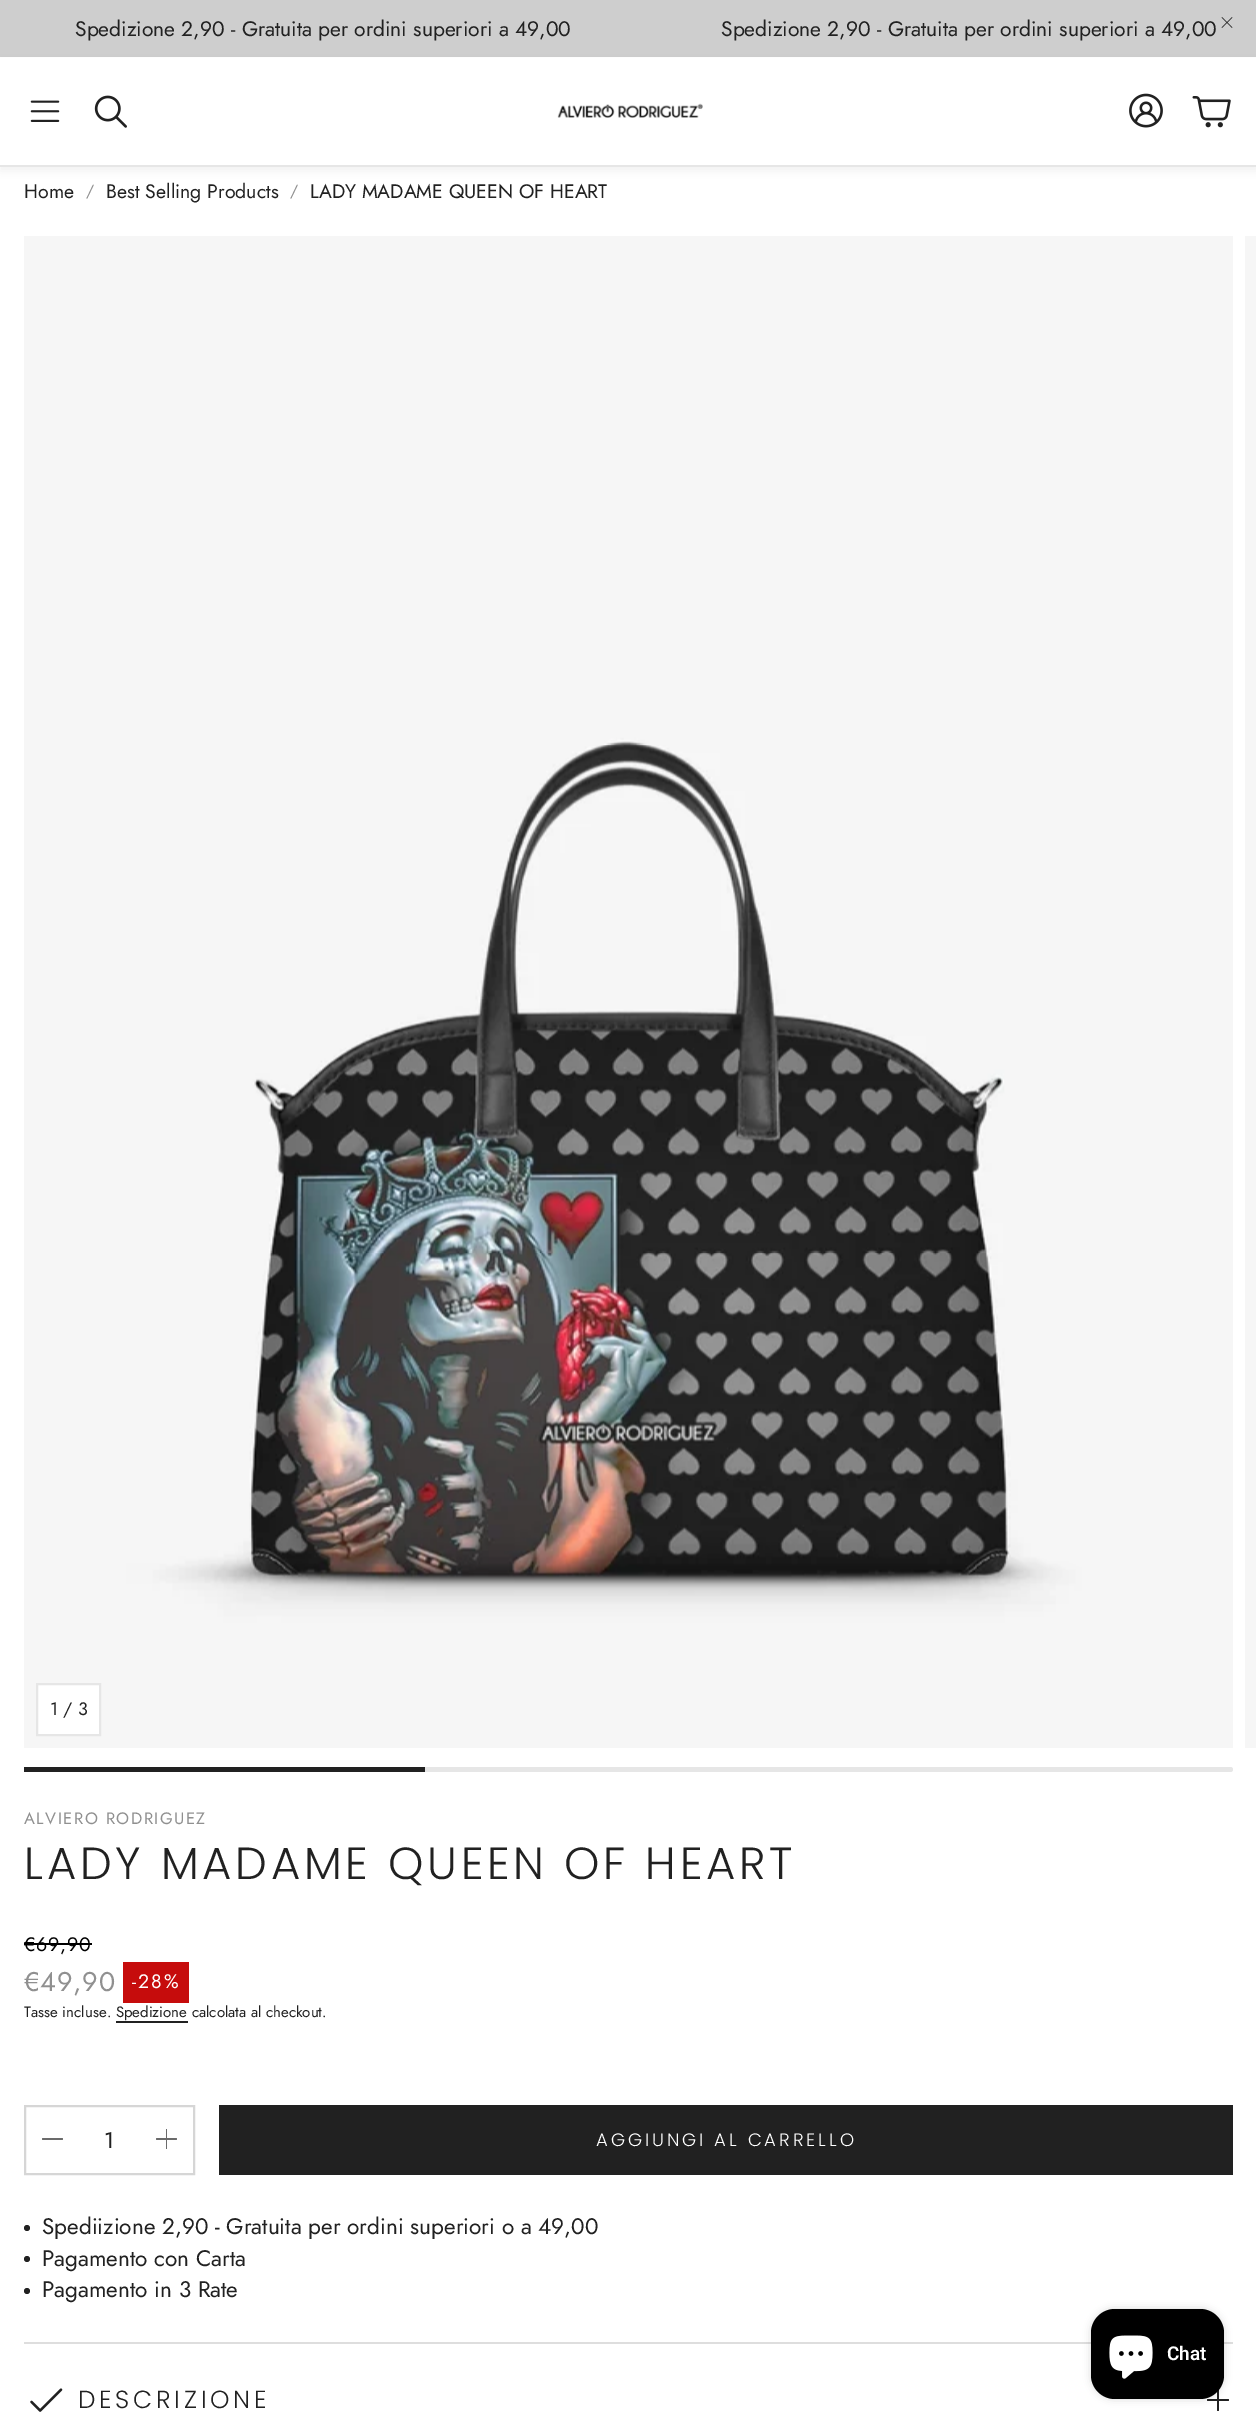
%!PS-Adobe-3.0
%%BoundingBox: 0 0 1256 2430
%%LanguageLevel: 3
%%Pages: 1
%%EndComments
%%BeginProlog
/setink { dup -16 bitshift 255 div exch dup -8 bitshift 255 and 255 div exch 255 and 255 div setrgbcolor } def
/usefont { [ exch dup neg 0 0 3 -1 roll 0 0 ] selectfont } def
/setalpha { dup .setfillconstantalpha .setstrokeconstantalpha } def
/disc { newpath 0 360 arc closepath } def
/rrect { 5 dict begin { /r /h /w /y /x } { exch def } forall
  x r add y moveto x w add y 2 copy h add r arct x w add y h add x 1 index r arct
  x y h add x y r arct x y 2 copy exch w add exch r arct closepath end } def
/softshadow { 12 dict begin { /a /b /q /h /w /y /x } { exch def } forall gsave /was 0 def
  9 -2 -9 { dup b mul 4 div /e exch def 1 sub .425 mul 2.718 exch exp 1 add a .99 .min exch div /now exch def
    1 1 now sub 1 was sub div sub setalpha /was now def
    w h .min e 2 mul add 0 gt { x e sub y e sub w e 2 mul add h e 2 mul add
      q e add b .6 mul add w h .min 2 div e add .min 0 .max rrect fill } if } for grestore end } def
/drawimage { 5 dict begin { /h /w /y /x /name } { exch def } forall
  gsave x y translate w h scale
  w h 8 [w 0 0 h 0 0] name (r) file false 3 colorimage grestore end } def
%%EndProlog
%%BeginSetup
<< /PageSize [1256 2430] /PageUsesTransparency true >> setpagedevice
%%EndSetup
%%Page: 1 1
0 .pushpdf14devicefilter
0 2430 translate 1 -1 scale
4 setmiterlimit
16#FFFFFF setink
0 0 1256 2430 rectfill
16#CECECE setink
0 0 1256 57 rectfill
/Jost-Regular 21 usefont
16#212121 setink
75 36 moveto (Spedizione 2,90 - Gratuita per ordini superiori a 49,00) show
721 36 moveto (Spedizione 2,90 - Gratuita per ordini superiori a 49,00) show
(img1.raw) 1221 17 12 11 drawimage
16#000000 setink
0 62 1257 109 0 4.5 0.05 softshadow
16#FFFFFF setink
0 58 1256 107 rectfill
16#E6E6E6 setink
0 165 1256 2 rectfill
(img2.raw) 30 100 30 22 drawimage
(img3.raw) 94 95 33 33 drawimage
(img4.raw) 557 103 146 15 drawimage
(img5.raw) 1129 93 34 35 drawimage
(img6.raw) 1192 96 39 32 drawimage
/Jost-Regular 19.5 usefont
16#212121 setink
24 198 moveto (Home) show
/Jost-Regular 16 usefont
16#909090 setink
86 196 moveto (/) show
/Jost-Regular 19.5 usefont
16#212121 setink
106 198 moveto (Best Selling Products) show
/Jost-Regular 16 usefont
16#909090 setink
290 196 moveto (/) show
/Jost-Regular 19.5 usefont
16#212121 setink
310 198 moveto (LADY MADAME QUEEN OF HEART) show
(img7.raw) 24 236 1209 1512 drawimage
16#F6F6F6 setink
1245 236 11 1512 rectfill
16#FFFFFF setink
37 1684 moveto 100 1684 lineto 100 1735 lineto 37 1735 lineto closepath gsave fill grestore
16#E6E6E6 setink
2 setlinewidth
stroke
/Jost-Regular 18 usefont
16#212121 setink
50 1715 moveto (1 / 3) show
16#E6E6E6 setink
24 1767 1209 5 2.5 rrect fill
16#212121 setink
24 1767 401 5 rectfill
/Jost-Regular 16.5 usefont
16#909090 setink
24 1824 moveto 1.5 0 (ALVIERO RODRIGUEZ) ashow
/Poppins-Light 45 usefont
16#212121 setink
24 1879 moveto 3.75 0 (LADY MADAME QUEEN OF HEART) ashow
/Jost-Regular 19.5 usefont
16#000000 setink
24 1951 moveto 0.75 0 (€69,90) ashow
24 1943 68 2 rectfill
/Jost-Regular 27 usefont
16#909090 setink
24 1991 moveto 0.75 0 (€49,90) ashow
16#C60C0C setink
123 1962 66 41 rectfill
/Jost-Regular 19.5 usefont
16#FFFFFF setink
132 1988 moveto 2 0 (-28%) ashow
/Jost-Regular 15 usefont
16#212121 setink
24 2017 moveto (Tasse incluse. Spedizione calcolata al checkout.) show
116 2021 72 2 rectfill
16#D6D6D6 setink
25 2106 169 68 rectstroke
16#6B6B6B setink
42 2138 21 2 1 rrect fill
/Jost-Regular 22.5 usefont
16#212121 setink
104 2148 moveto (1) show
16#6B6B6B setink
156 2138 21 2 1 rrect fill
166 2129 1 20 0.5 rrect fill
16#212121 setink
219 2105 1014 70 rectfill
/Poppins-Light 18 usefont
16#FFFFFF setink
596 2146 moveto 3 0 (AGGIUNGI AL CARRELLO) ashow
16#212121 setink
27 2228 3 disc fill
/Jost-Regular 22.5 usefont
42 2234 moveto (Spediizione 2,90 - Gratuita per ordini superiori o a 49,00) show
27 2259 3 disc fill
42 2266 moveto (Pagamento con Carta) show
27 2291 3 disc fill
42 2297 moveto (Pagamento in 3 Rate) show
16#DEDEDE setink
24 2342 1209 2 rectfill
(img8.raw) 30 2388 33 24 drawimage
/Poppins-Light 24.75 usefont
16#212121 setink
78 2408 moveto 3.75 0 (DESCRIZIONE) ashow
1207 2399 22 2 1 rrect fill
1217 2389 2 22 1 rrect fill
16#000000 setink
1091 2309 133 90 24 4 0.15 softshadow
1091 2309 133 90 24 rrect fill
(img9.raw) 1109 2335 44 44 drawimage
/Roboto-SemiBold 19 usefont
16#FFFFFF setink
1167 2360 moveto (Chat) show
.poppdf14devicefilter showpage
%%EOF
